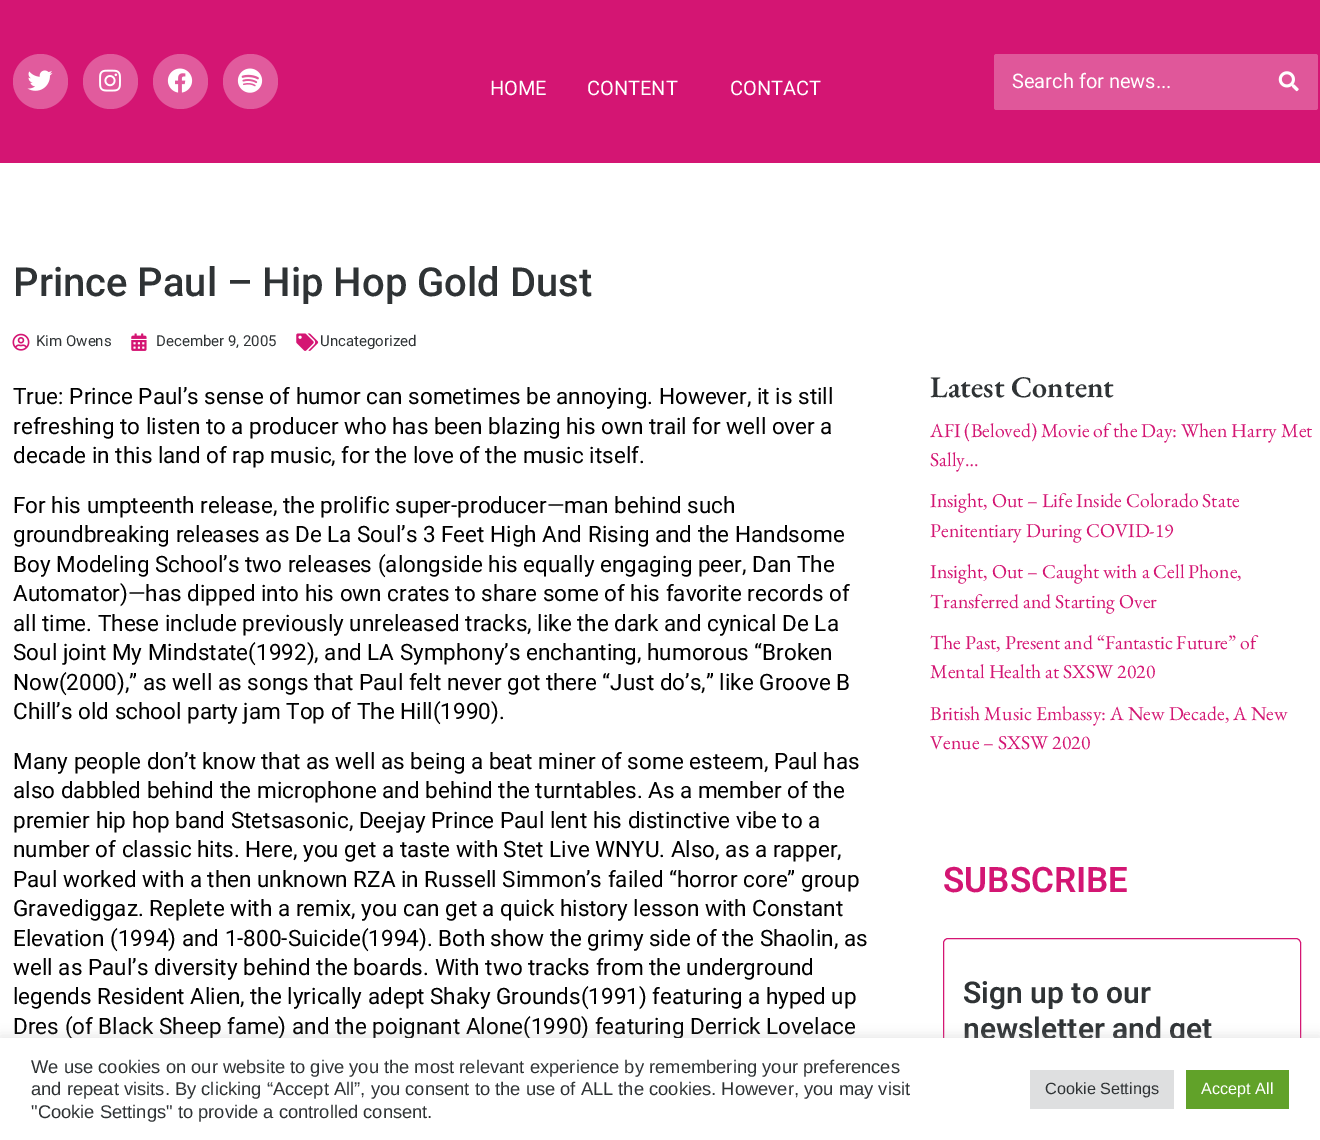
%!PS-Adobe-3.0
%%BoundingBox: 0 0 1320 1140
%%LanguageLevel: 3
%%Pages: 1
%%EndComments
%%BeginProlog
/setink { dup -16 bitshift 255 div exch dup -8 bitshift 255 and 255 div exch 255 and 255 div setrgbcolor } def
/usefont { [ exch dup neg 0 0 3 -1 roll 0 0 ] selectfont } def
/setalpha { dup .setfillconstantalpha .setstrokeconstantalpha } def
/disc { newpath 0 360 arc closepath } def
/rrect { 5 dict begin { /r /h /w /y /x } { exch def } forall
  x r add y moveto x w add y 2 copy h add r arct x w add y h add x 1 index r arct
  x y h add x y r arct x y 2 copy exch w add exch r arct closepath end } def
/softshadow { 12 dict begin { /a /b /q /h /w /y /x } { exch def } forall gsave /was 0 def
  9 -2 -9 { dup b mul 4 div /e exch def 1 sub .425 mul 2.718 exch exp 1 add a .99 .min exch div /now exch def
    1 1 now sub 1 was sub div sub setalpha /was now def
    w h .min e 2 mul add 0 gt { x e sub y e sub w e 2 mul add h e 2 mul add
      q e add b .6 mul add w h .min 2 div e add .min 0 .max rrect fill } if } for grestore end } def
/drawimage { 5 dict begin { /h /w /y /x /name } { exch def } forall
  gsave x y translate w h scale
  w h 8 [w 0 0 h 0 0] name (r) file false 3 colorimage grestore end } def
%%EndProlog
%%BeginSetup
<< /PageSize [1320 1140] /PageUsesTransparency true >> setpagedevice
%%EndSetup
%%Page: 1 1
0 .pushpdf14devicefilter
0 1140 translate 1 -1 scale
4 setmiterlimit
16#FFFFFF setink
0 0 1320 1140 rectfill
16#D41573 setink
0 0 1320 163 rectfill
16#E15B9D setink
40.5 81.5 27.5 disc fill
(img1.raw) 27 70 26 21 drawimage
110.5 81.5 27.5 disc fill
(img2.raw) 99 69 22 23 drawimage
180.5 81.5 27.5 disc fill
(img3.raw) 167 68 26 25 drawimage
250.5 81.5 27.5 disc fill
(img4.raw) 237 68 26 25 drawimage
/Roboto-Regular 20 usefont
16#FFFFFF setink
[
    [(HOME) 490 95]
    [(CONTENT) 587 95]
    [(CONTACT) 730 95]
] { aload pop moveto show } forall
16#E0579A setink
994 54 324 56 2.5 rrect fill
16#FFFFFF setink
1012 88 moveto (Search for news...) show
(img5.raw) 1278 71 21 21 drawimage
/Roboto-Medium 40 usefont
16#2F3335 setink
13 296 moveto (Prince Paul – Hip Hop Gold Dust) show
(img6.raw) 12 333 18 18 drawimage
/Roboto-Regular 15 usefont
36 346 moveto (Kim Owens) show
(img7.raw) 131 333 16 18 drawimage
156 346 moveto (December 9, 2005) show
(img8.raw) 296 333 23 18 drawimage
320 346 moveto (Uncategorized) show
/Roboto-Regular 22.5 usefont
16#000000 setink
[
    [(True: Prince Paul’s sense of humor can sometimes be annoying. However, it is still) 13 404]
    [(refreshing to listen to a producer who has been blazing his own trail for well over a) 13 434]
    [(decade in this land of rap music, for the love of the music itself.) 13 463]
    [(For his umpteenth release, the prolific super-producer—man behind such) 13 513]
    [(groundbreaking releases as De La Soul’s 3 Feet High And Rising and the Handsome) 13 542]
    [(Boy Modeling School’s two releases \(alongside his equally engaging peer, Dan The) 13 572]
    [(Automator\)—has dipped into his own crates to share some of his favorite records of) 13 601]
    [(all time. These include previously unreleased tracks, like the dark and cynical De La) 13 631]
    [(Soul joint My Mindstate\(1992\), and LA Symphony’s enchanting, humorous “Broken) 13 660]
    [(Now\(2000\),” as well as songs that Paul felt never got there “Just do’s,” like Groove B) 13 690]
    [(Chill’s old school party jam Top of The Hill\(1990\).) 13 719]
    [(Many people don’t know that as well as being a beat miner of some esteem, Paul has) 13 769]
    [(also dabbled behind the microphone and behind the turntables. As a member of the) 13 798]
    [(premier hip hop band Stetsasonic, Deejay Prince Paul lent his distinctive vibe to a) 13 828]
    [(number of classic hits. Here, you get a taste with Stet Live WNYU. Also, as a rapper,) 13 857]
    [(Paul worked with a then unknown RZA in Russell Simmon’s failed “horror core” group) 13 887]
    [(Gravediggaz. Replete with a remix, you can get a quick history lesson with Constant) 13 916]
    [(Elevation \(1994\) and 1-800-Suicide\(1994\). Both show the grimy side of the Shaolin, as) 13 946]
    [(well as Paul’s diversity behind the boards. With two tracks from the underground) 13 975]
    [(legends Resident Alien, the lyrically adept Shaky Grounds\(1991\) featuring a hyped up) 13 1004]
    [(Dres \(of Black Sheep fame\) and the poignant Alone\(1990\) featuring Derrick Lovelace) 13 1034]
] { aload pop moveto show } forall
/EBGaramond-SemiBold 30 usefont
16#2F3335 setink
930 397 moveto (Latest Content) show
/EBGaramond-Regular 19.7 usefont
16#D31673 setink
[
    [(AFI \(Beloved\) Movie of the Day: When Harry Met) 930 437]
    [(Sally…) 930 466]
    [(Insight, Out – Life Inside Colorado State) 930 507]
    [(Penitentiary During COVID-19) 930 537]
    [(Insight, Out – Caught with a Cell Phone,) 930 578]
    [(Transferred and Starting Over) 930 608]
    [(The Past, Present and “Fantastic Future” of) 930 649]
    [(Mental Health at SXSW 2020) 930 678]
    [(British Music Embassy: A New Decade, A New) 930 720]
    [(Venue – SXSW 2020) 930 749]
] { aload pop moveto show } forall
/Roboto-SemiBold 35 usefont
943 892 moveto (SUBSCRIBE) show
16#D41573 setink
943.5 938.5 357 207 4.5 rrect stroke
/Roboto-SemiBold 30 usefont
16#2F3335 setink
963 1003 moveto (Sign up to our) show
963 1039 moveto (newsletter and get) show
16#ACABAB setink
0 1036 1320 103 0 6 0.3 softshadow
16#FFFFFF setink
0 1038 1320 102 rectfill
/LiberationSans-Regular 18.35 usefont
16#2F3335 setink
[
    [(We use cookies on our website to give you the most relevant experience by remembering your preferences) 31 1073]
    [(and repeat visits. By clicking “Accept All”, you consent to the use of ALL the cookies. However, you may visit) 31 1095]
    [("Cookie Settings" to provide a controlled consent.) 31 1118]
] { aload pop moveto show } forall
16#DEDFE0 setink
1030 1070 144 39 rectfill
/LiberationSans-Regular 16.25 usefont
16#2F3335 setink
1045 1094 moveto (Cookie Settings) show
16#61A229 setink
1186 1070 103 39 rectfill
16#FFFFFF setink
1201 1094 moveto (Accept All) show
.poppdf14devicefilter showpage
%%EOF
